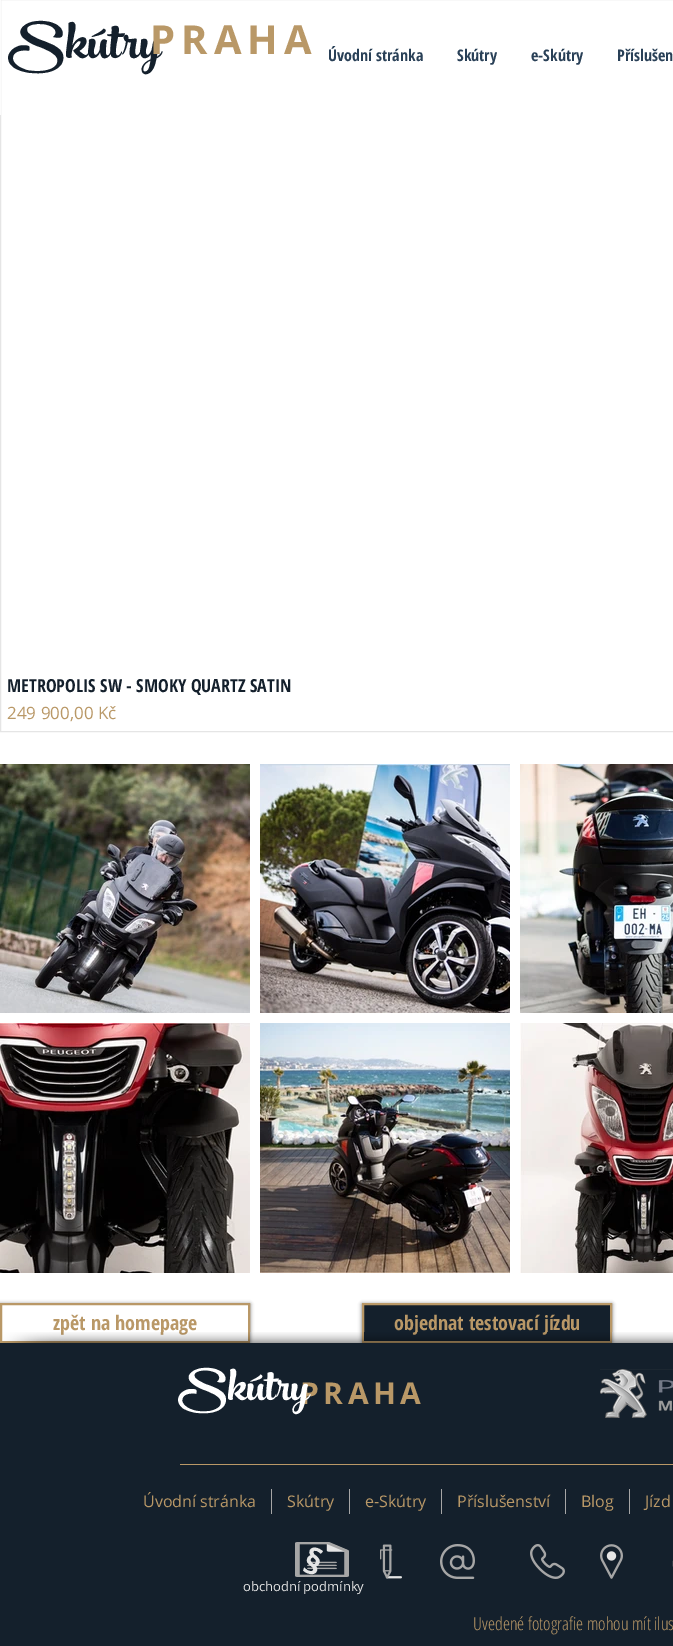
%!PS-Adobe-3.0
%%BoundingBox: 0 0 673 1646
%%LanguageLevel: 3
%%Pages: 1
%%EndComments
%%BeginProlog
/setink { dup -16 bitshift 255 div exch dup -8 bitshift 255 and 255 div exch 255 and 255 div setrgbcolor } def
/usefont { [ exch dup neg 0 0 3 -1 roll 0 0 ] selectfont } def
/setalpha { dup .setfillconstantalpha .setstrokeconstantalpha } def
/rrect { 5 dict begin { /r /h /w /y /x } { exch def } forall
  x r add y moveto x w add y 2 copy h add r arct x w add y h add x 1 index r arct
  x y h add x y r arct x y 2 copy exch w add exch r arct closepath end } def
/softshadow { 12 dict begin { /a /b /q /h /w /y /x } { exch def } forall gsave /was 0 def
  9 -2 -9 { dup b mul 4 div /e exch def 1 sub .425 mul 2.718 exch exp 1 add a .99 .min exch div /now exch def
    1 1 now sub 1 was sub div sub setalpha /was now def
    w h .min e 2 mul add 0 gt { x e sub y e sub w e 2 mul add h e 2 mul add
      q e add b .6 mul add w h .min 2 div e add .min 0 .max rrect fill } if } for grestore end } def
/drawimage { 5 dict begin { /h /w /y /x /name } { exch def } forall
  gsave x y translate w h scale
  w h 8 [w 0 0 h 0 0] name (r) file false 3 colorimage grestore end } def
%%EndProlog
%%BeginSetup
<< /PageSize [673 1646] /PageUsesTransparency true >> setpagedevice
%%EndSetup
%%Page: 1 1
0 .pushpdf14devicefilter
0 1646 translate 1 -1 scale
4 setmiterlimit
16#FFFFFF setink
0 0 673 1646 rectfill
16#E5E5E5 setink
0.5 -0.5 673 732 rectstroke
0.87 setalpha
16#FFFFFF setink
0 0 1 115 rectfill
/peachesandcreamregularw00-Regular 76 usefont
1 setalpha
16#14202C setink
8 58 moveto 0.75 0 (Skútry) ashow
/OpenSans-Bold 40 usefont
16#B99867 setink
150 54 moveto 6 0 (PRAHA) ashow
/OpenSansCondensed-Bold 16 usefont
16#294057 setink
[
    [(Úvodní stránka) 328 61]
    [(Skútry) 457 61]
    [(e-Skútry) 531 61]
    [(Příslušen) 617 61]
] { aload pop moveto show } forall
/OpenSansCondensed-Bold 18 usefont
16#14202C setink
7 692 moveto (METROPOLIS SW - SMOKY QUARTZ SATIN) show
/OpenSans-Regular 17 usefont
16#B99867 setink
7 719 moveto (249 900,00 Kč) show
(img1.raw) 0 764 250 249 drawimage
(img2.raw) 0 1023 250 250 drawimage
(img3.raw) 260 764 250 249 drawimage
(img4.raw) 260 1023 250 250 drawimage
(img5.raw) 520 764 153 249 drawimage
(img6.raw) 520 1023 153 250 drawimage
gsave
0 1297 moveto 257 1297 lineto 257 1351 lineto 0 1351 lineto closepath 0 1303 moveto 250 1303 lineto 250 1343 lineto 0 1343 lineto closepath eoclip newpath
16#000000 setink
0 1304 250 40 0 2 0.6 softshadow
grestore
2 setlinewidth
1 1304 248 38 rectstroke
/OpenSansCondensed-Bold 20 usefont
53 1330 moveto (zpět na homepage) show
16#000000 setink
362 1304 250 40 0 2 0.6 softshadow
16#14202C setink
363 1304 moveto 611 1304 lineto 611 1342 lineto 363 1342 lineto closepath gsave fill grestore
16#B99867 setink
stroke
394 1330 moveto (objednat testovací jízdu) show
16#14202C setink
0 1343 673 303 rectfill
(img7.raw) 3 1332 97 11 drawimage
(img8.raw) 100 1332 573 11 drawimage
/OpenSans-Bold 30 usefont
16#B99867 setink
300 1404 moveto 4.5 0 (PRAHA) ashow
/peachesandcreamregularw00-Regular 66 usefont
16#FFFFFF setink
178 1400 moveto 0.5 0 (Skútry) ashow
(img9.raw) 600 1369 73 49 drawimage
16#B99867 setink
180 1464 493 1 rectfill
/OpenSans-Regular 16 usefont
143 1507 moveto (Úvodní stránka) show
16#A6A6A6 setink
271 1489 1 25 rectfill
16#B99867 setink
287 1507 moveto (Skútry) show
16#A6A6A6 setink
349 1489 1 25 rectfill
16#B99867 setink
365 1507 moveto (e-Skútry) show
16#A6A6A6 setink
441 1489 1 25 rectfill
16#B99867 setink
457 1507 moveto (Příslušenství) show
16#A6A6A6 setink
565 1489 1 25 rectfill
16#B99867 setink
581 1507 moveto (Blog) show
16#A6A6A6 setink
629 1489 1 25 rectfill
16#B99867 setink
645 1507 moveto (Jízd) show
(img10.raw) 295 1542 54 35 drawimage
/OpenSans-Bold 35 usefont
16#E5E5E5 setink
gsave 301 1571 translate 17.5 rotate 0 0 moveto (§) show grestore
/OpenSans-Regular 13 usefont
243 1591 moveto (obchodní podmínky) show
(img11.raw) 380 1544 22 35 drawimage
(img12.raw) 440 1544 35 35 drawimage
(img13.raw) 530 1544 35 35 drawimage
(img14.raw) 600 1544 23 35 drawimage
(img15.raw) 672 1560 1 7 drawimage
/OpenSansCondensed-Light 18 usefont
16#B99867 setink
473 1630 moveto (Uvedené fotografie mohou mít ilus) show
.poppdf14devicefilter showpage
%%EOF
